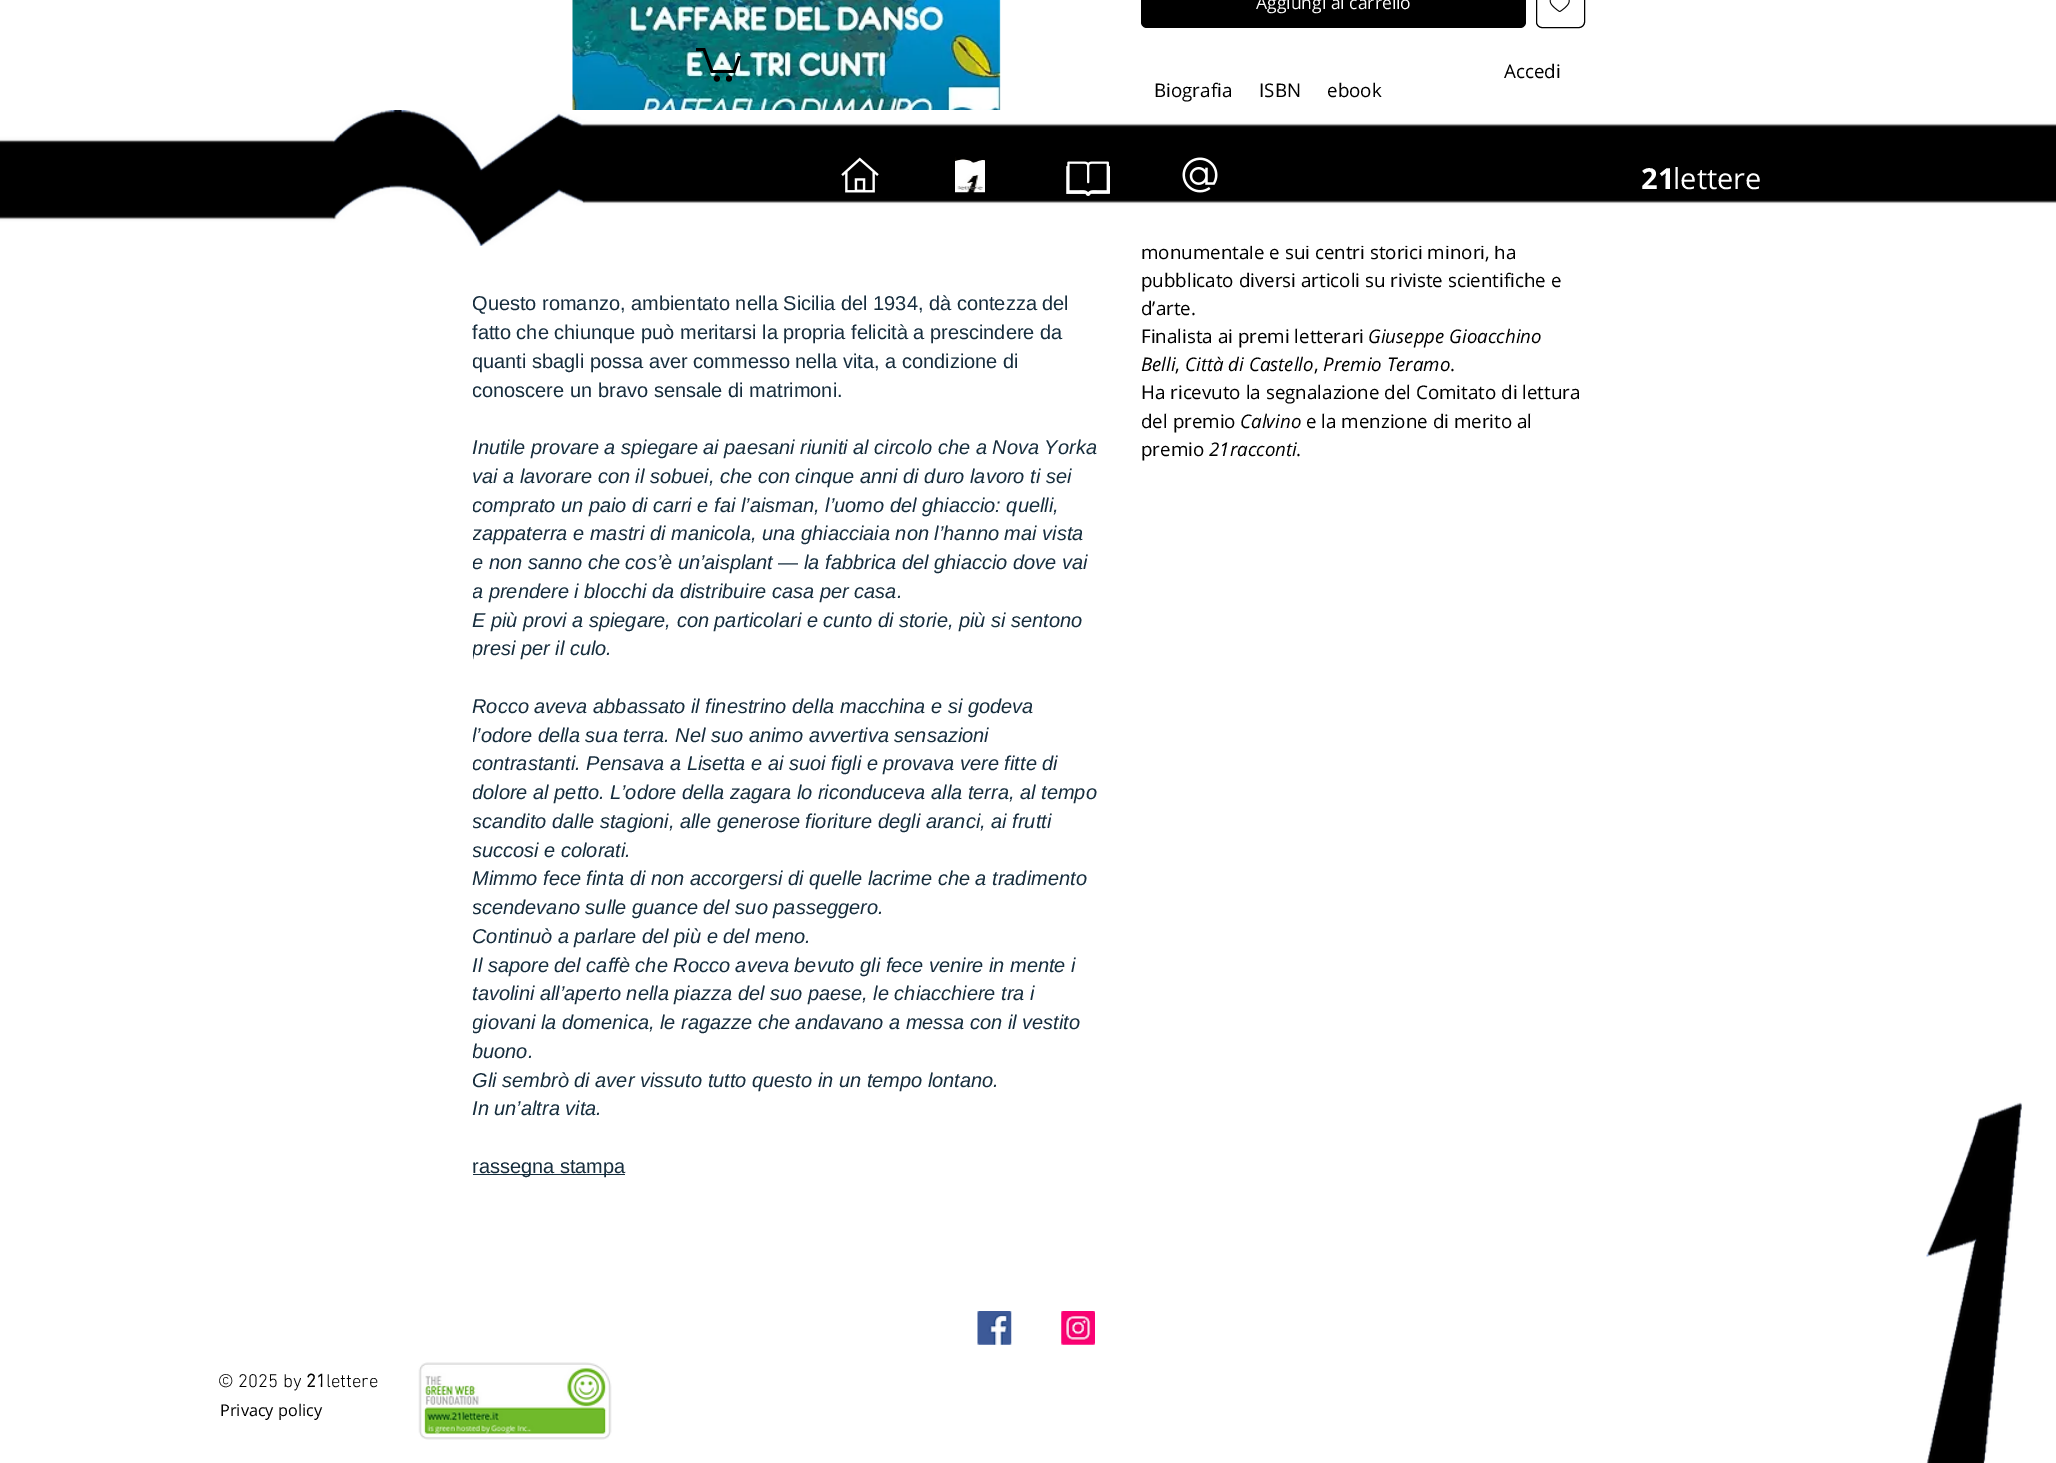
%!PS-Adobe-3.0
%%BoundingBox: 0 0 2056 1463
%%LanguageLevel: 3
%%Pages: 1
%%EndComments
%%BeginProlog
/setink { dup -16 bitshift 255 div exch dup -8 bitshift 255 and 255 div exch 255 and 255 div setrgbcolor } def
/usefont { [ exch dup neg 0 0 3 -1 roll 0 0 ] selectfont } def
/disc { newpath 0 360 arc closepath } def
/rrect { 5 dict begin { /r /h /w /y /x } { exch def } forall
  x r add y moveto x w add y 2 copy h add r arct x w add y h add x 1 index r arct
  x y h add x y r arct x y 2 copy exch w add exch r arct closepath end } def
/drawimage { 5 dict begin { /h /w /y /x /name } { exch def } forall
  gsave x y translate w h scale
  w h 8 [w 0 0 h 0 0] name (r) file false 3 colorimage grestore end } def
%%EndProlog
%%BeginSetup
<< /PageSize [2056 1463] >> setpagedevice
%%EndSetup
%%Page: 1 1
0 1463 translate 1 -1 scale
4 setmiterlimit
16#FFFFFF setink
0 0 2056 1463 rectfill
16#000000 setink
1141 -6 385 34 6 rrect fill
/OpenSans-Regular 17.5 usefont
16#FFFFFF setink
1256 9 moveto (Aggiungi al carrello) show
16#000000 setink
1536.5 -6.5 48 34 5.5 rrect stroke
(img1.raw) 1549 0 21 12 drawimage
/OpenSans-Regular 18.75 usefont
[
    [(Biografia) 1154 97]
    [(ISBN) 1259 97]
    [(ebook) 1327 97]
    [(monumentale e sui centri storici minori, ha) 1141 259]
    [(pubblicato diversi articoli su riviste scientifiche e) 1141 287]
    [(d’arte.) 1141 315]
    [(Finalista ai premi letterari) 1141 343]
] { aload pop moveto show } forall
/OpenSans-Italic 18.75 usefont
1368 343 moveto (Giuseppe Gioacchino) show
1141 371 moveto (Belli) show
/OpenSans-Regular 18.75 usefont
1175 371 moveto (,) show
/OpenSans-Italic 18.75 usefont
1185 371 moveto (Città di Castello) show
/OpenSans-Regular 18.75 usefont
1314 371 moveto (,) show
/OpenSans-Italic 18.75 usefont
1323 371 moveto (Premio Teramo) show
/OpenSans-Regular 18.75 usefont
[
    [(.) 1450 371]
    [(Ha ricevuto la segnalazione del Comitato di lettura) 1141 399]
    [(del premio) 1141 428]
] { aload pop moveto show } forall
/OpenSans-Italic 18.75 usefont
1240 428 moveto (Calvino) show
/OpenSans-Regular 18.75 usefont
1306 428 moveto (e la menzione di merito al) show
1141 456 moveto (premio) show
/OpenSans-Italic 18.75 usefont
1209 456 moveto (21racconti) show
/OpenSans-Regular 18.75 usefont
1296 456 moveto (.) show
(img2.raw) 572 0 429 110 drawimage
/LiberationSans-Regular 20 usefont
16#162D3D setink
472 310 moveto (Questo romanzo, ambientato nella Sicilia del 1934, dà contezza del) show
472 339 moveto (fatto che chiunque può meritarsi la propria felicità a prescindere da) show
gsave
473 289 625 891 rectclip
472 368 moveto (quanti sbagli possa aver commesso) show
grestore
795 368 moveto (nella vita, a condizione di) show
gsave
473 289 625 891 rectclip
472 397 moveto (conoscere un) show
grestore
598 397 moveto (bravo sensale di matrimoni.) show
/LiberationSans-Italic 20 usefont
472 454 moveto (Inutile provare a spiegare ai paesani riuniti al circolo che a Nova Yorka) show
472 483 moveto (vai a lavorare con il sobuei, che con cinque anni di duro lavoro ti sei) show
gsave
473 289 625 891 rectclip
472 512 moveto (comprato un paio di) show
grestore
653 512 moveto (carri e fai l’aisman, l’uomo del ghiaccio: quelli,) show
gsave
473 289 625 891 rectclip
472 540 moveto (zappaterra e mastri di manicola, una ghiacciaia non l’hanno mai vista) show
472 569 moveto (e non sanno che cos’è un’) show
grestore
704 569 moveto (aisplant — la fabbrica del ghiaccio dove vai) show
gsave
473 289 625 891 rectclip
472 598 moveto (a prendere i blocchi da distribuire casa per casa.) show
grestore
472 627 moveto (E più provi a spiegare, con particolari e cunto di storie, più si sentono) show
gsave
473 289 625 891 rectclip
472 655 moveto (presi per il culo.) show
grestore
472 713 moveto (Rocco aveva abbassato il finestrino della macchina e si godeva) show
gsave
473 289 625 891 rectclip
[
    [(l’odore della sua terra. Nel suo animo avvertiva sensazioni) 472 742]
    [(contrastanti. Pensava a Lisetta e ai suoi figli e provava vere fitte di) 472 770]
    [(dolore al petto. L’odore della zagara lo riconduceva alla terra, al tempo) 472 799]
    [(scandito dalle stagioni, alle generose fioriture degli aranci, ai frutti) 472 828]
    [(succosi e colorati.) 472 857]
] { aload pop moveto show } forall
grestore
472 885 moveto (Mimmo fece finta di non accorgersi di quelle lacrime che a tradimento) show
gsave
473 289 625 891 rectclip
472 914 moveto (scendevano sulle guance del suo passeggero.) show
grestore
[
    [(Continuò a parlare del più e del meno.) 472 943]
    [(Il sapore del caffè che Rocco aveva bevuto gli fece venire in mente i) 472 972]
    [(tavolini all’aperto nella piazza del suo paese, le chiacchiere tra i) 472 1000]
] { aload pop moveto show } forall
gsave
473 289 625 891 rectclip
472 1029 moveto (giovani la domenica, le ragazze che andavano a messa con il vestito) show
472 1058 moveto (buono.) show
grestore
472 1087 moveto (Gli sembrò di aver vissuto tutto questo in un tempo lontano.) show
472 1115 moveto (In un’altra vita.) show
473 1174 152 1 rectfill
/LiberationSans-Regular 20 usefont
472 1173 moveto (rassegna stampa) show
(img3.raw) 977 1311 35 34 drawimage
(img4.raw) 1061 1311 34 34 drawimage
16#000000 setink
741 56 moveto 735 73 lineto 711 73 lineto 703 51 lineto 696 51 lineto 696 48 lineto 705 48 lineto 713 70 lineto 733 70 lineto 738 56 lineto fill
729 78.6 3 disc fill
716.9 78.6 3 disc fill
/OpenSans-Regular 18.75 usefont
1504 78 moveto (Accedi) show
(img5.raw) 0 110 2056 136 drawimage
(img6.raw) 841 157 38 36 drawimage
(img7.raw) 955 157 30 36 drawimage
(img8.raw) 1066 161 44 35 drawimage
(img9.raw) 1182 157 36 36 drawimage
/OpenSans-Bold 29 usefont
16#FFFFFF setink
1641 189 moveto (21) show
/OpenSans-Regular 29 usefont
1673 189 moveto (lettere) show
/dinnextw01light-Light 18.75 usefont
16#000000 setink
218 1387 moveto (© 2025 by) show
/dinnextw01light-Bold 18.75 usefont
306 1387 moveto (21) show
/dinnextw01light-Light 18.75 usefont
326 1387 moveto (lettere) show
(img10.raw) 418 1362 194 78 drawimage
/OpenSans-Regular 16.25 usefont
220 1416 moveto (Privacy policy) show
(img11.raw) 1926 1102 96 361 drawimage
showpage
%%EOF
